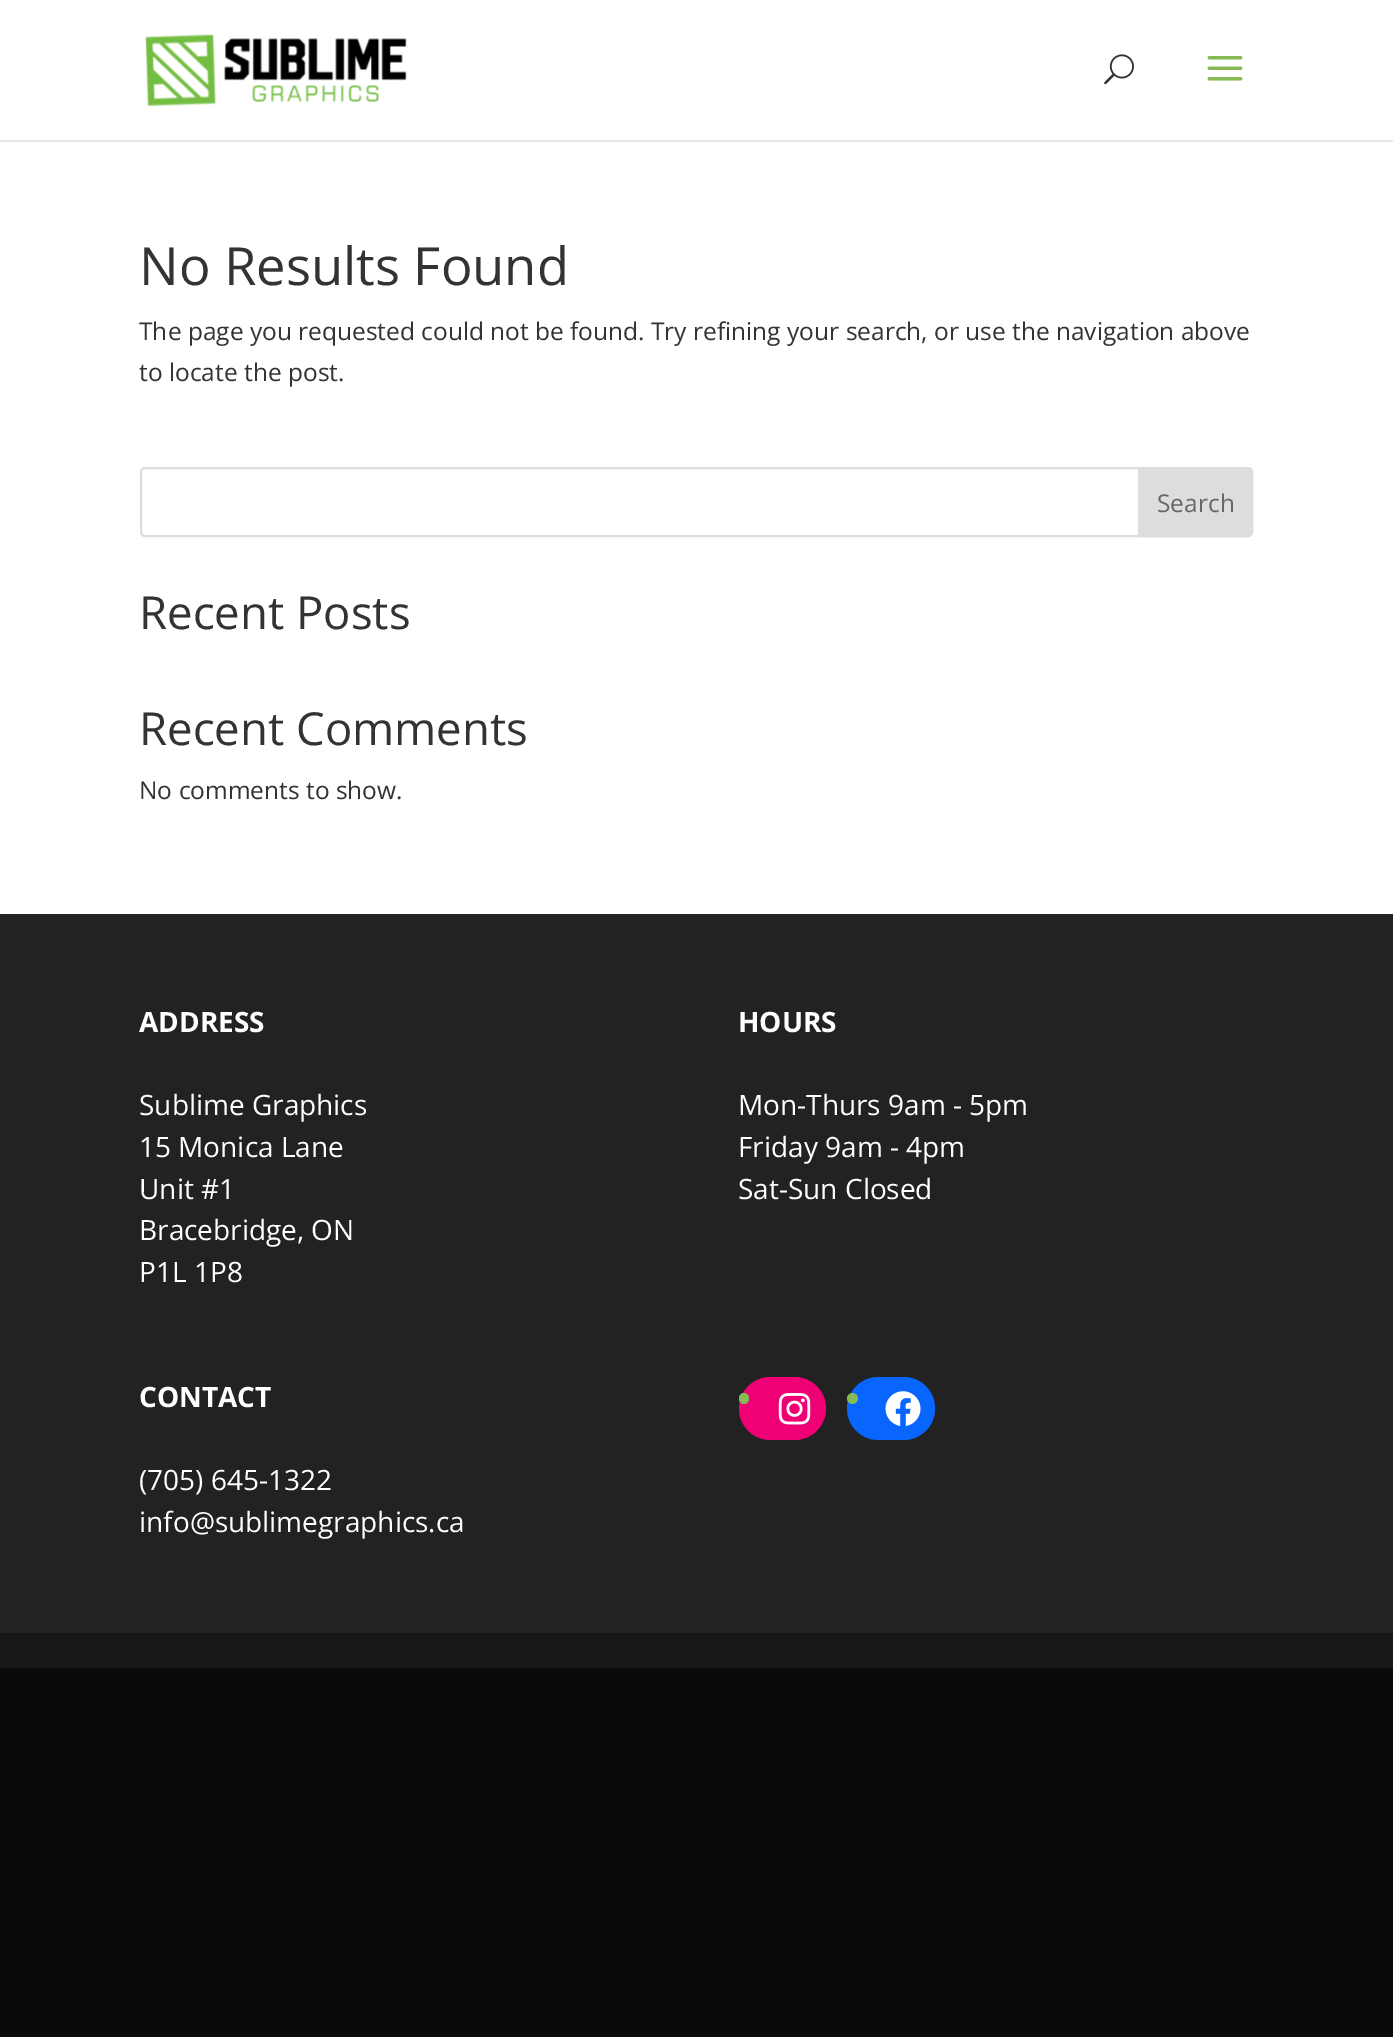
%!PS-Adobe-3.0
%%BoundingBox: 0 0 1393 2037
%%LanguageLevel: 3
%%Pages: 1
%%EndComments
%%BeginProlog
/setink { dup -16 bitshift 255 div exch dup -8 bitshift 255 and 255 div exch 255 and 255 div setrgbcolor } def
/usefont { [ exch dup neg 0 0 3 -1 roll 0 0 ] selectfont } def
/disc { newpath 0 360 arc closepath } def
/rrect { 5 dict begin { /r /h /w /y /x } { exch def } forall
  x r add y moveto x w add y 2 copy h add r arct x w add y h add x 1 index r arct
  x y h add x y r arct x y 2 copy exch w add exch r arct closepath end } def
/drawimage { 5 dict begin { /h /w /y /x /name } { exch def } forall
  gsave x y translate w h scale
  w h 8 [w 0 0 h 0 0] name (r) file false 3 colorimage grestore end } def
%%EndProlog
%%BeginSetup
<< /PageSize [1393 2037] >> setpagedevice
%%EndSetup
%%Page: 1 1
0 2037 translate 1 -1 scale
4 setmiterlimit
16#0A0A0A setink
0 0 1393 2037 rectfill
16#E6E6E6 setink
0 140 1393 2 rectfill
16#FFFFFF setink
0 0 1393 140 rectfill
(img1.raw) 145 34 262 73 drawimage
(img2.raw) 1104 54 30 31 drawimage
(img3.raw) 1207 56 36 25 drawimage
0 142 1393 772 rectfill
/OpenSans-Regular 52.5 usefont
16#333333 setink
139 285 moveto (No Results Found) show
/OpenSans-Regular 24.5 usefont
139 340 moveto (The page you requested could not be found. Try refining your search, or use the navigation above) show
139 381 moveto (to locate the post.) show
16#DDDDDD setink
2 setlinewidth
141 468 1111 68 4 rrect stroke
1139 468 moveto 1248 468 lineto 1250 468 1252 470 1252 472 curveto 1252 532 lineto 1252 534 1250 536 1248 536 curveto 1139 536 lineto closepath gsave fill grestore
stroke
16#666666 setink
1157 512 moveto (Search) show
/OpenSans-Regular 45.5 usefont
16#333333 setink
139 629 moveto (Recent Posts) show
139 745 moveto (Recent Comments) show
/OpenSans-Regular 24.5 usefont
139 799 moveto (No comments to show.) show
16#222222 setink
0 914 1393 719 rectfill
/OpenSans-Bold 28 usefont
16#FFFFFF setink
139 1032 moveto (ADDRESS) show
/OpenSans-Regular 28 usefont
[
    [(Sublime Graphics) 139 1115]
    [(15 Monica Lane) 139 1157]
    [(Unit #1) 139 1199]
    [(Bracebridge, ON) 139 1240]
    [(P1L 1P8) 139 1282]
] { aload pop moveto show } forall
/OpenSans-Bold 28 usefont
738 1032 moveto (HOURS) show
/OpenSans-Regular 28 usefont
[
    [(Mon-Thurs 9am - 5pm) 738 1115]
    [(Friday 9am - 4pm) 738 1157]
    [(Sat-Sun Closed) 738 1199]
] { aload pop moveto show } forall
/OpenSans-Bold 28 usefont
139 1407 moveto (CONTACT) show
/OpenSans-Regular 28 usefont
139 1490 moveto (\(705\) 645-1322) show
139 1532 moveto (info@sublimegraphics.ca) show
16#F00075 setink
739 1377 87 63 31.5 rrect fill
16#86BA55 setink
739 1393 10 11 5 rrect fill
(img4.raw) 778 1393 33 32 drawimage
16#0866FF setink
847 1377 88 63 31.5 rrect fill
16#86BA55 setink
852.5 1398.5 5.5 disc fill
(img5.raw) 885 1391 36 35 drawimage
16#171717 setink
0 1633 1393 35 rectfill
showpage
%%EOF
